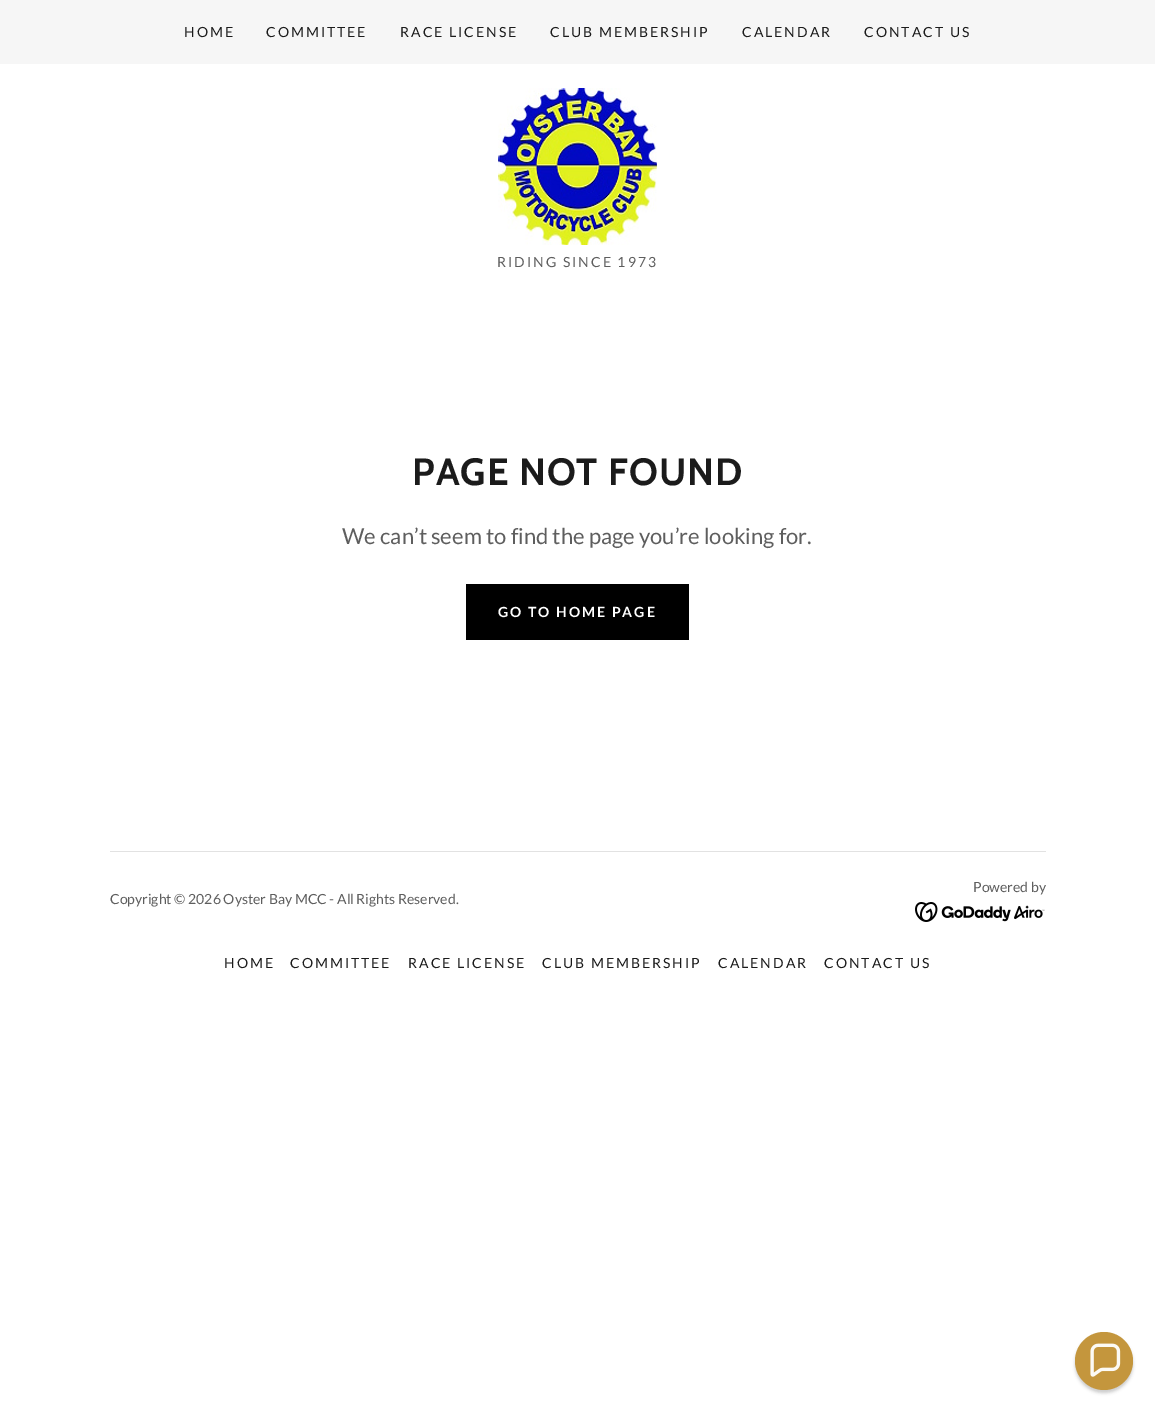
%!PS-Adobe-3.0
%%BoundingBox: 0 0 1155 1412
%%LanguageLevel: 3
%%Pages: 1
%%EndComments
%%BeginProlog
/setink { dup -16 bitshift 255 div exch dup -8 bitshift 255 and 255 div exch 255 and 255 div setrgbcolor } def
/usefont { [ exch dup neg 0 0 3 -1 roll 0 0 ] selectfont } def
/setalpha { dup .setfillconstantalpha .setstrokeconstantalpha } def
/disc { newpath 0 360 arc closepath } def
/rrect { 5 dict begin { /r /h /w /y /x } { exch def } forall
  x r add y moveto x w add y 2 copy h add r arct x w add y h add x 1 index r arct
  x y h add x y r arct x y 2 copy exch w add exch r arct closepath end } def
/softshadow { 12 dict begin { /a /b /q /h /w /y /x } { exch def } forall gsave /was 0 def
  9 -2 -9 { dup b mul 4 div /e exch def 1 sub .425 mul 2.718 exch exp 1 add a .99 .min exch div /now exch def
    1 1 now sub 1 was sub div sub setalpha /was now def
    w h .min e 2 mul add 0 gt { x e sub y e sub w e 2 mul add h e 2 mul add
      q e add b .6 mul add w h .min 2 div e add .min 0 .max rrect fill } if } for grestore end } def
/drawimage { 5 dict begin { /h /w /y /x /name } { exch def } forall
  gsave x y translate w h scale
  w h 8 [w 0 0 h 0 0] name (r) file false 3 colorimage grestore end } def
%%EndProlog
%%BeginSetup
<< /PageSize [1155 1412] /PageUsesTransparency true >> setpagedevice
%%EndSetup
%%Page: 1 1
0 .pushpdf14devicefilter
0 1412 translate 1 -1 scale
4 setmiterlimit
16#FFFFFF setink
0 0 1155 1412 rectfill
16#F6F6F6 setink
0 0 1155 64 rectfill
/Lato-Regular 14 usefont
16#1B1B1B setink
184 37 moveto 2 0 (HOME) ashow
266 37 moveto 2 0 (COMMITTEE) ashow
400 37 moveto 2 0 (RACE LICENSE) ashow
550 37 moveto 2 0 (CLUB MEMBERSHIP) ashow
742 37 moveto 2 0 (CALENDAR) ashow
864 37 moveto 2 0 (CONTACT US) ashow
(img1.raw) 498 88 159 157 drawimage
16#5E5E5E setink
497 267 moveto 2 0 (RIDING SINCE 1973) ashow
/Cabin-Bold 38 usefont
16#1B1B1B setink
412 485 moveto 1 0 (PAGE NOT FOUND) ashow
/Lato-Regular 22 usefont
16#5E5E5E setink
342 544 moveto (We can’t seem to find the page you’re looking for.) show
16#000000 setink
466 584 223 56 rectfill
/Lato-Bold 14 usefont
16#FFFFFF setink
498 617 moveto 2 0 (GO TO HOME PAGE) ashow
16#E2E2E2 setink
110 851 936 1 rectfill
/Lato-Regular 14 usefont
16#5E5E5E setink
973 892 moveto (Powered by) show
(img2.raw) 915 902 130 20 drawimage
110 904 moveto (Copyright © 2026 Oyster Bay MCC - All Rights Reserved.) show
16#1B1B1B setink
224 968 moveto 2 0 (HOME) ashow
290 968 moveto 2 0 (COMMITTEE) ashow
408 968 moveto 2 0 (RACE LICENSE) ashow
542 968 moveto 2 0 (CLUB MEMBERSHIP) ashow
718 968 moveto 2 0 (CALENDAR) ashow
824 968 moveto 2 0 (CONTACT US) ashow
16#0D0D0D setink
1075 1335 58 58 29 1.5 0.2 softshadow
16#C4963D setink
1104 1361 29 disc fill
(img3.raw) 1090 1343 31 34 drawimage
.poppdf14devicefilter showpage
%%EOF
